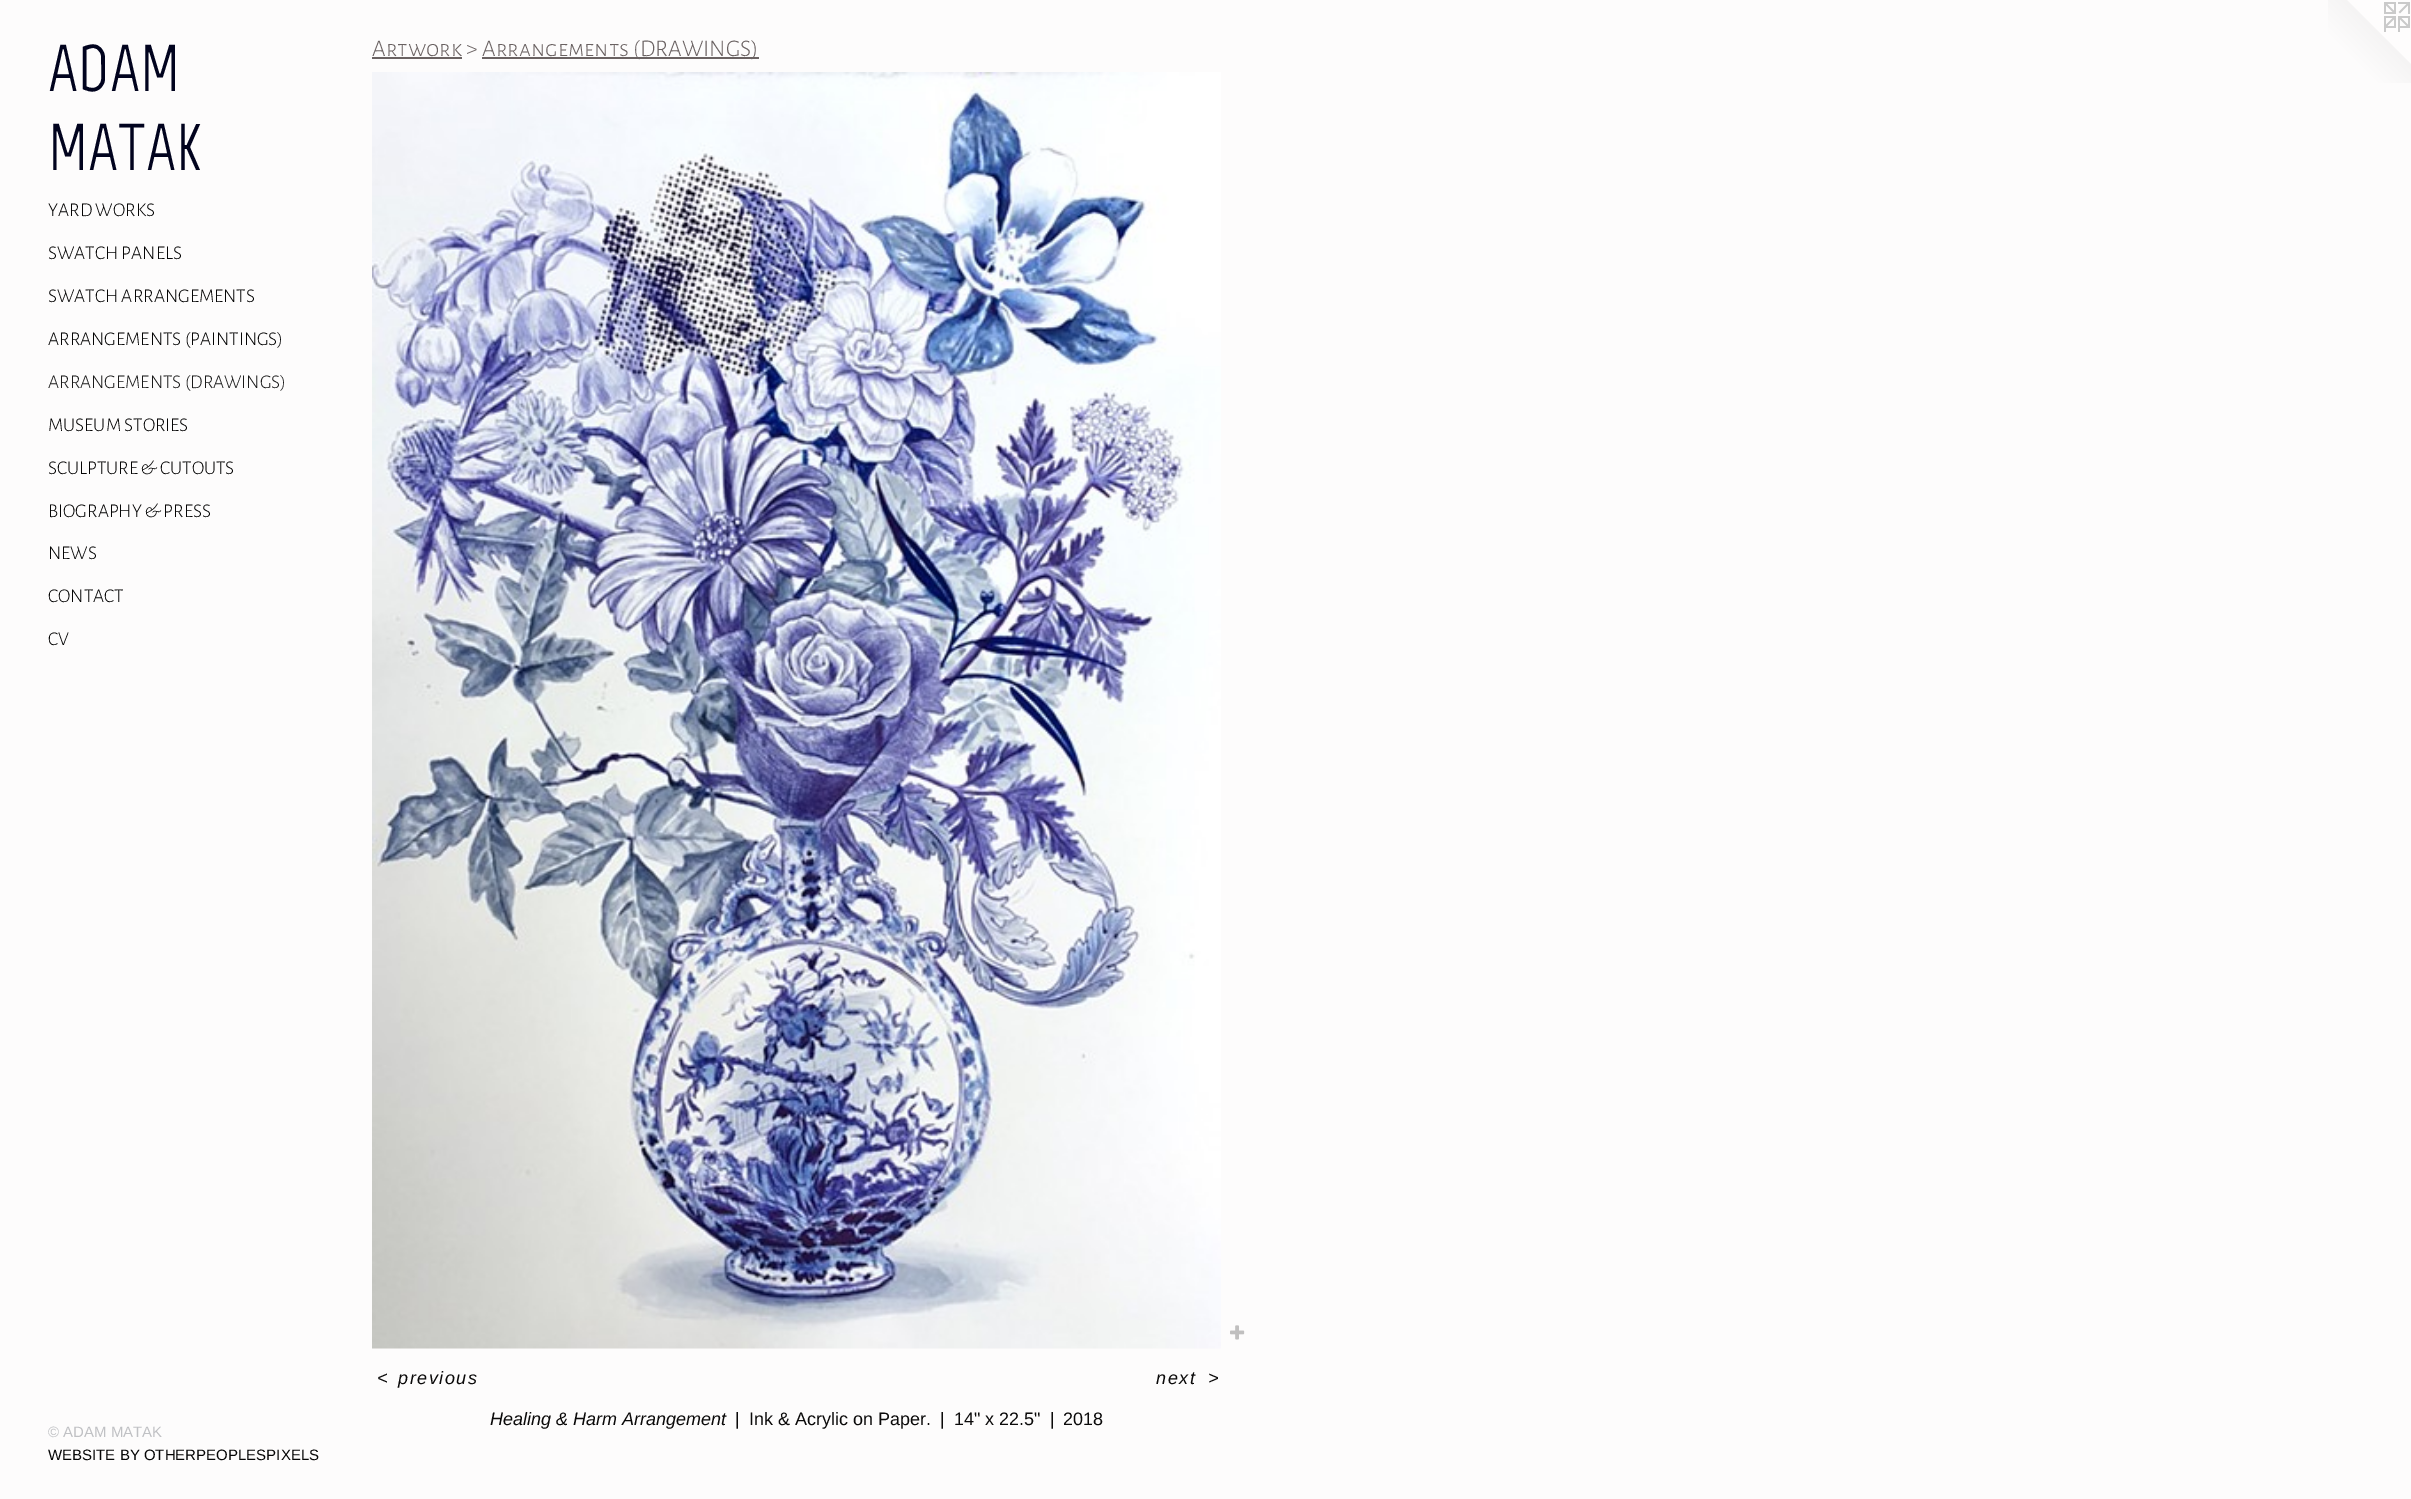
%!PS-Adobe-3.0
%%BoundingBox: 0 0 2411 1499
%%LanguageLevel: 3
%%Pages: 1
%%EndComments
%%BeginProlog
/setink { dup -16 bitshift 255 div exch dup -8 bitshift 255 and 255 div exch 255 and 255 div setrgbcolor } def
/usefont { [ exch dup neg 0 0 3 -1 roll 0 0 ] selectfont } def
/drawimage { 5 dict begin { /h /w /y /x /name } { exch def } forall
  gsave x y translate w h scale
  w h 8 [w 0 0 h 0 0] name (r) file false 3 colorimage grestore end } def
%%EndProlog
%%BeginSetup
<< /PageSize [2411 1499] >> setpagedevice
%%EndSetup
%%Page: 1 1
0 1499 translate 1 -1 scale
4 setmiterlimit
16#FDFCFC setink
0 0 2411 1499 rectfill
/Marvel-Regular 66 usefont
16#01031E setink
48 91 moveto (ADAM) show
48 170 moveto (MATAK) show
/AlegreyaSansSC-Light 19.5 usefont
16#050505 setink
[
    [(YARD WORKS) 48 216]
    [(SWATCH PANELS) 48 259]
    [(SWATCH ARRANGEMENTS) 48 302]
    [(ARRANGEMENTS \(PAINTINGS\)) 48 345]
] { aload pop moveto show } forall
16#1A1A1A setink
48 388 moveto (ARRANGEMENTS \(DRAWINGS\)) show
16#050505 setink
[
    [(MUSEUM STORIES) 48 431]
    [(SCULPTURE & CUTOUTS) 48 474]
    [(BIOGRAPHY & PRESS) 48 517]
    [(NEWS) 48 559]
    [(CONTACT) 48 602]
    [(CV) 48 645]
] { aload pop moveto show } forall
/LiberationSans-Regular 15 usefont
16#C0C1C4 setink
48 1437 moveto (© ADAM MATAK) show
16#050505 setink
48 1460 moveto (WEBSITE BY OTHERPEOPLESPIXELS) show
/AlegreyaSansSC-Light 24 usefont
16#6A6262 setink
372 56 moveto (Artwork >) show
372 57 90 2 rectfill
482 57 277 2 rectfill
482 56 moveto (Arrangements \(DRAWINGS\)) show
(img1.raw) 372 72 849 1277 drawimage
(img2.raw) 1230 1325 15 15 drawimage
/LiberationSans-Italic 18 usefont
16#0B0A0A setink
377 1384 moveto 1.5 0 (<) ashow
398 1384 moveto 1.5 0 (previous) ashow
1156 1384 moveto 1.5 0 (next) ashow
1208 1384 moveto 1.5 0 (>) ashow
490 1425 moveto (Healing & Harm Arrangement) show
/LiberationSans-Regular 18 usefont
[
    [(|) 735 1425]
    [(Ink & Acrylic on Paper.) 749 1425]
    [(|) 940 1425]
    [(14" x 22.5") 954 1425]
    [(|) 1050 1425]
    [(2018) 1063 1425]
] { aload pop moveto show } forall
(img3.raw) 2328 0 83 83 drawimage
showpage
%%EOF
